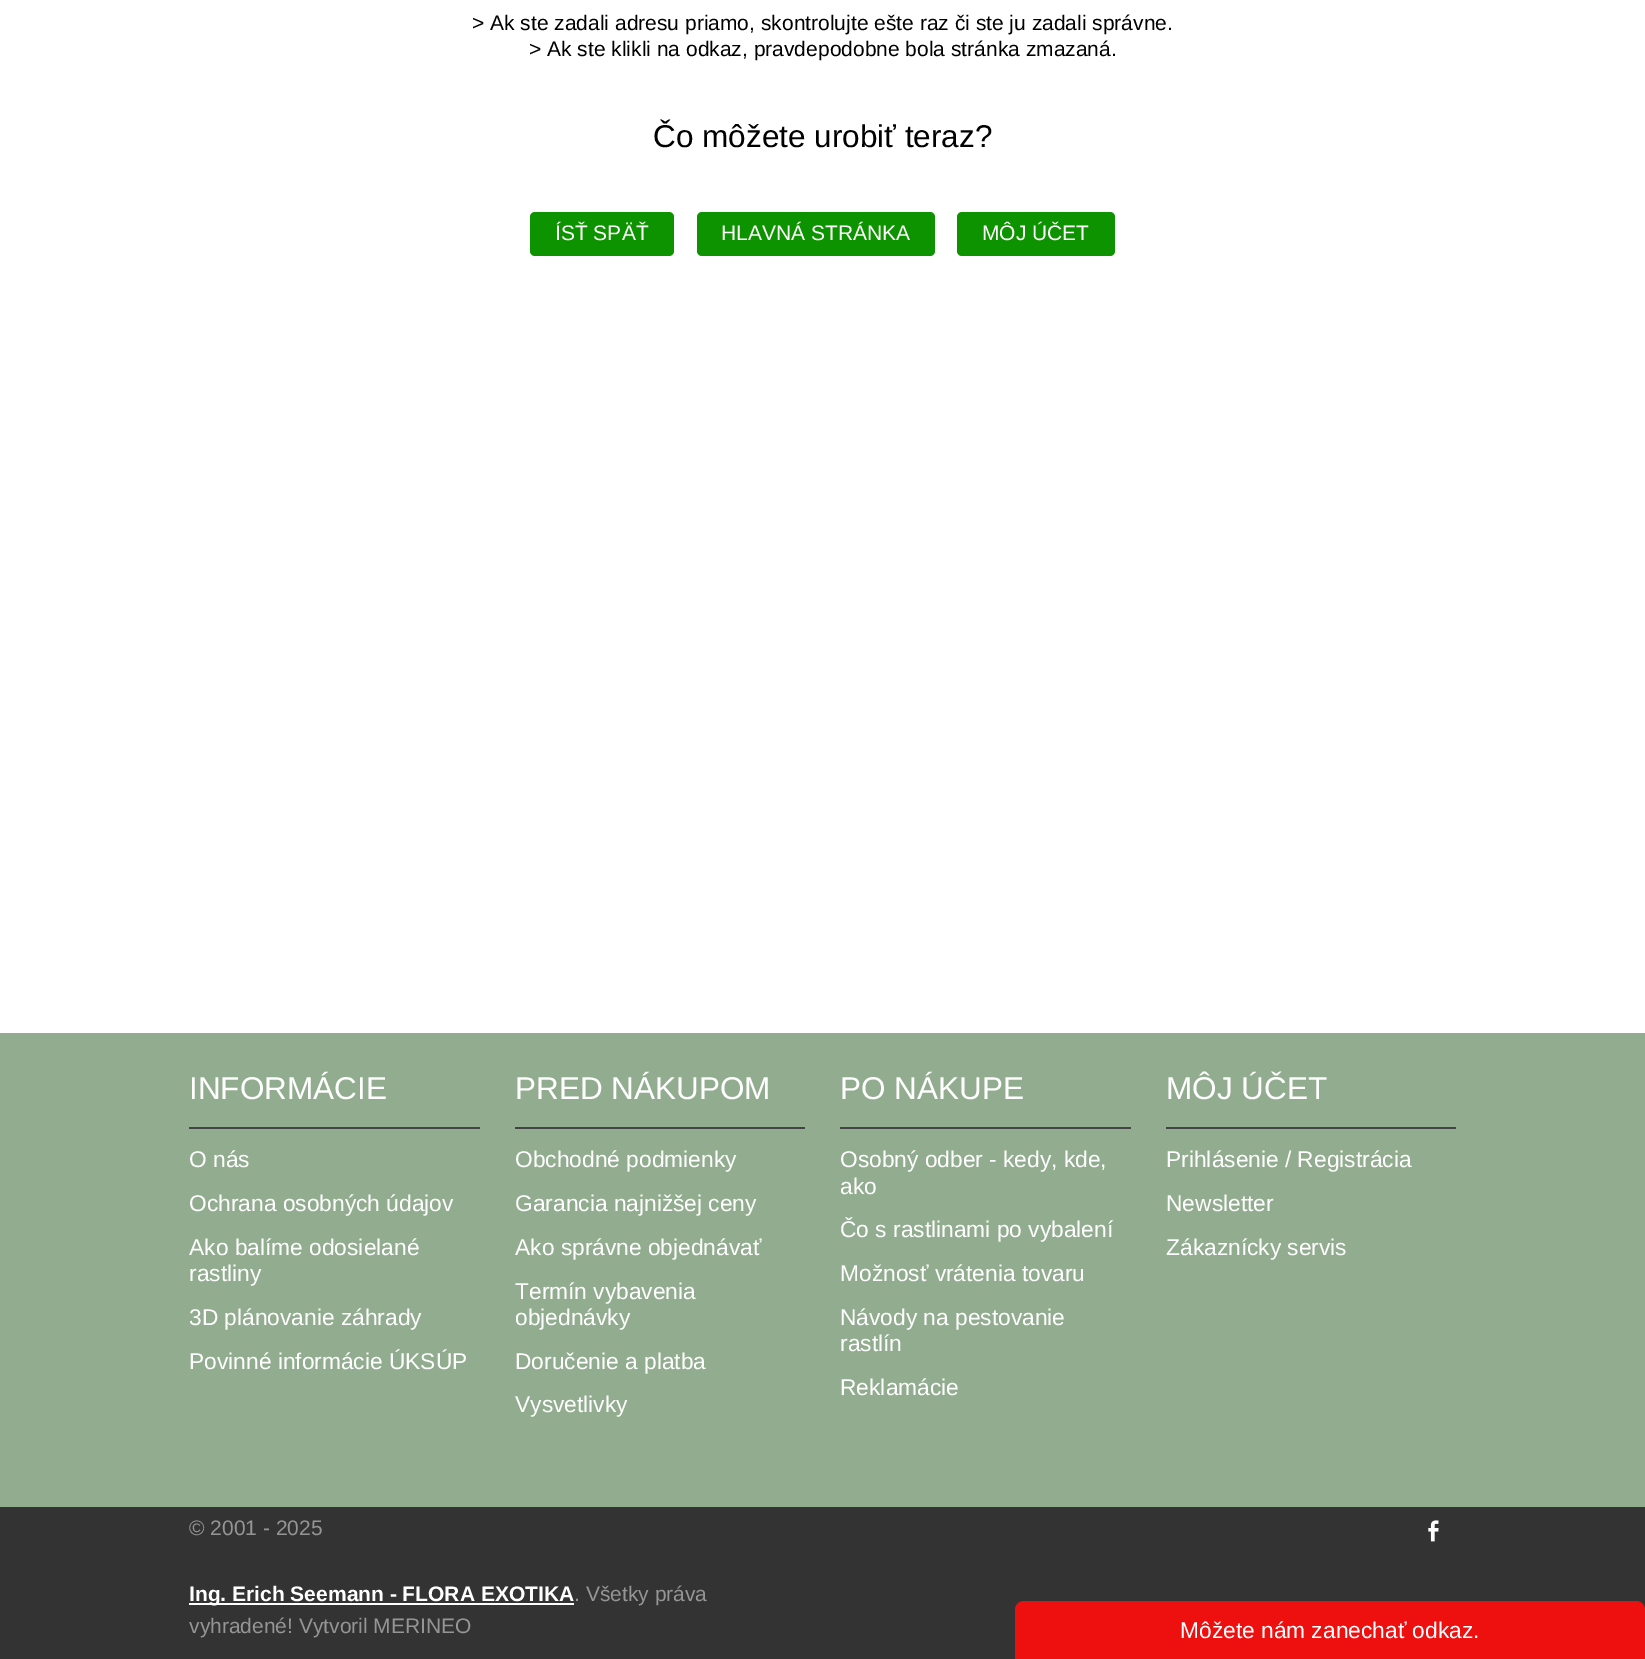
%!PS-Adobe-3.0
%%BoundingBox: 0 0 1645 1659
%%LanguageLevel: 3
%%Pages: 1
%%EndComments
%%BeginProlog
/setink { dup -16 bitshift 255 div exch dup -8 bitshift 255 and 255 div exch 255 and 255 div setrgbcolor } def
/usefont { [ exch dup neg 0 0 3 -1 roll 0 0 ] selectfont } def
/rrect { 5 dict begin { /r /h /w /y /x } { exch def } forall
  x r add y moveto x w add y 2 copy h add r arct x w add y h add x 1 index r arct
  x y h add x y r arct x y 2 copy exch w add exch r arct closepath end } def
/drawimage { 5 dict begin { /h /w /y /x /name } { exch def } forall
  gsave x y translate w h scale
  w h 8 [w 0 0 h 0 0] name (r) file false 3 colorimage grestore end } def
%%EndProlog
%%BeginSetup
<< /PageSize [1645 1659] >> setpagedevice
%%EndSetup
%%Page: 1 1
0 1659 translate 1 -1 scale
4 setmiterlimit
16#FFFFFF setink
0 0 1645 1659 rectfill
/LiberationSans-Regular 21 usefont
16#000000 setink
472 30 moveto (> Ak ste zadali adresu priamo, skontrolujte ešte raz či ste ju zadali správne.) show
529 56 moveto (> Ak ste klikli na odkaz, pravdepodobne bola stránka zmazaná.) show
/LiberationSans-Regular 31.5 usefont
653 147 moveto (Čo môžete urobiť teraz?) show
16#0E9300 setink
530 212 144 44 5 rrect fill
/LiberationSans-Regular 21 usefont
16#FFFFFF setink
555 240 moveto (ÍSŤ SPÄŤ) show
16#0E9300 setink
697 212 238 44 5 rrect fill
16#FFFFFF setink
721 240 moveto (HLAVNÁ STRÁNKA) show
16#0E9300 setink
957 212 158 44 5 rrect fill
16#FFFFFF setink
982 240 moveto (MÔJ ÚČET) show
16#91AC8E setink
0 1033 1645 474 rectfill
16#444444 setink
189 1127 291 2 rectfill
/LiberationSans-Regular 31.5 usefont
16#FFFFFF setink
189 1099 moveto (INFORMÁCIE) show
/LiberationSans-Regular 22.75 usefont
[
    [(O nás) 189 1167]
    [(Ochrana osobných údajov) 189 1211]
    [(Ako balíme odosielané) 189 1255]
    [(rastliny) 189 1281]
    [(3D plánovanie záhrady) 189 1325]
    [(Povinné informácie ÚKSÚP) 189 1369]
] { aload pop moveto show } forall
16#444444 setink
515 1127 290 2 rectfill
/LiberationSans-Regular 31.5 usefont
16#FFFFFF setink
515 1099 moveto (PRED NÁKUPOM) show
/LiberationSans-Regular 22.75 usefont
[
    [(Obchodné podmienky) 515 1167]
    [(Garancia najnižšej ceny) 515 1211]
    [(Ako správne objednávať) 515 1255]
    [(Termín vybavenia) 515 1299]
    [(objednávky) 515 1325]
    [(Doručenie a platba) 515 1369]
    [(Vysvetlivky) 515 1412]
] { aload pop moveto show } forall
16#444444 setink
840 1127 291 2 rectfill
/LiberationSans-Regular 31.5 usefont
16#FFFFFF setink
840 1099 moveto (PO NÁKUPE) show
/LiberationSans-Regular 22.75 usefont
[
    [(Osobný odber - kedy, kde,) 840 1167]
    [(ako) 840 1194]
    [(Čo s rastlinami po vybalení) 840 1237]
    [(Možnosť vrátenia tovaru) 840 1281]
    [(Návody na pestovanie) 840 1325]
    [(rastlín) 840 1351]
    [(Reklamácie) 840 1395]
] { aload pop moveto show } forall
16#444444 setink
1166 1127 290 2 rectfill
/LiberationSans-Regular 31.5 usefont
16#FFFFFF setink
1166 1099 moveto (MÔJ ÚČET) show
/LiberationSans-Regular 22.75 usefont
[
    [(Prihlásenie / Registrácia) 1166 1167]
    [(Newsletter) 1166 1211]
    [(Zákaznícky servis) 1166 1255]
] { aload pop moveto show } forall
16#333333 setink
0 1507 1645 152 rectfill
/LiberationSans-Regular 21 usefont
16#959595 setink
189 1535 moveto (© 2001 - 2025) show
16#FFFFFF setink
189 1603 385 2 rectfill
/LiberationSans-Bold 21 usefont
189 1601 moveto (Ing. Erich Seemann - FLORA EXOTIKA) show
/LiberationSans-Regular 21 usefont
16#959595 setink
574 1601 moveto (. Všetky práva) show
189 1633 moveto (vyhradené! Vytvoril MERINEO) show
(img1.raw) 1428 1520 11 22 drawimage
16#EE0F0F setink
1024 1601 moveto 1636 1601 lineto 1641 1601 1645 1605 1645 1610 curveto 1645 1659 lineto 1015 1659 lineto 1015 1610 lineto 1015 1605 1019 1601 1024 1601 curveto closepath fill
/LiberationSans-Regular 22.75 usefont
16#FFFFFF setink
1180 1638 moveto (Môžete nám zanechať odkaz.) show
showpage
%%EOF
